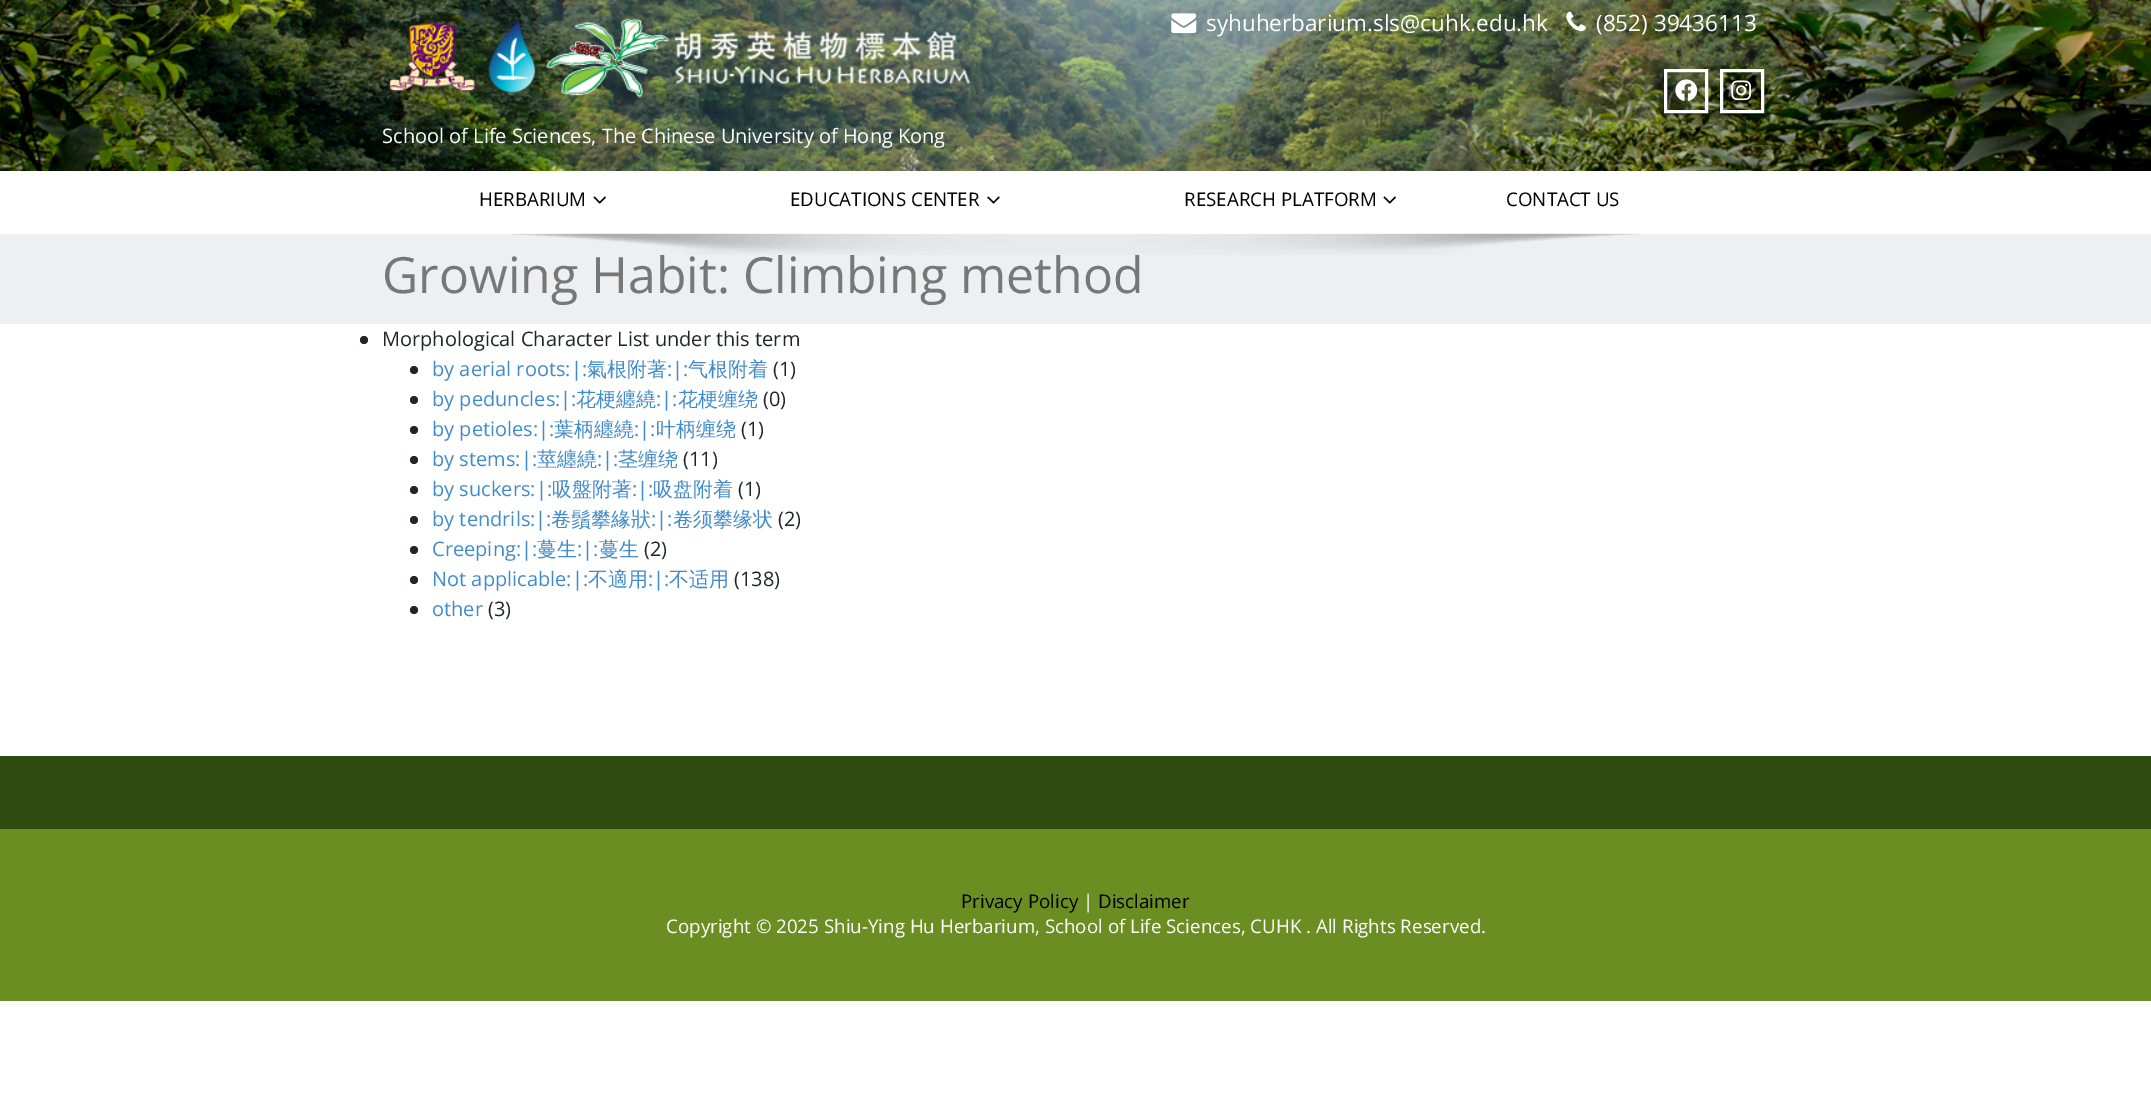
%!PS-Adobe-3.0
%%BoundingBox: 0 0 2151 1109
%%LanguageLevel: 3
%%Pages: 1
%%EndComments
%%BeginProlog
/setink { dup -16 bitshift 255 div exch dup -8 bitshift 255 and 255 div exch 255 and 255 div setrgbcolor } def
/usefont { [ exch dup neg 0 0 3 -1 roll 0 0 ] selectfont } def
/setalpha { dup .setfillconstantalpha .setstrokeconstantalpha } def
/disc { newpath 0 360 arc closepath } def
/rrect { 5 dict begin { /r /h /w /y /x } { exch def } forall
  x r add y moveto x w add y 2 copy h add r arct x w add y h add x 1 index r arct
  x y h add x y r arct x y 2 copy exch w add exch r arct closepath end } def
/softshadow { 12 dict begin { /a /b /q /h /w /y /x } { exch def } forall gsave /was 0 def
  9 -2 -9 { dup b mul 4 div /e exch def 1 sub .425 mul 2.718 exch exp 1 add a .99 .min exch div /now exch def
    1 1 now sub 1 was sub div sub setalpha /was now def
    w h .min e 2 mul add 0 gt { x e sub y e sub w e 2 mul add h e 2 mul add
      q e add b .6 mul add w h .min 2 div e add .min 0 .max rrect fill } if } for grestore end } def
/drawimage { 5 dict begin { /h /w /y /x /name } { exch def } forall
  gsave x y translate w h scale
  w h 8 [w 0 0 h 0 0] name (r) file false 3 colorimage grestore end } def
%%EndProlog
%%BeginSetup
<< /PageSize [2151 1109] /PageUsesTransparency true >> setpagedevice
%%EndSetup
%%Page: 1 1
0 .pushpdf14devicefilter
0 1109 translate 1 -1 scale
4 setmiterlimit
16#FFFFFF setink
0 0 2151 1109 rectfill
(img1.raw) 0 0 2151 171 drawimage
(img2.raw) 1171 13 26 21 drawimage
/OpenSans-Regular 22.5 usefont
1206 31 moveto (syhuherbarium.sls@cuhk.edu.hk) show
(img3.raw) 1566 11 20 21 drawimage
1596 31 moveto (\(852\) 39436113) show
gsave
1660 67 moveto 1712 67 lineto 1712 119 lineto 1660 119 lineto closepath 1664 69 moveto 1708 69 lineto 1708 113 lineto 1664 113 lineto closepath eoclip newpath
16#000000 setink
1664 71 44 44 0 1 0.6 softshadow
grestore
3 setlinewidth
1665.5 70.5 41 41 rectstroke
(img4.raw) 1675 79 23 22 drawimage
gsave
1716 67 moveto 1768 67 lineto 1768 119 lineto 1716 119 lineto closepath 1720 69 moveto 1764 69 lineto 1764 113 lineto 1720 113 lineto closepath eoclip newpath
16#000000 setink
1720 71 44 44 0 1 0.6 softshadow
grestore
1721.5 70.5 41 41 rectstroke
(img5.raw) 1731 80 20 21 drawimage
(img6.raw) 388 22 88 70 drawimage
(img7.raw) 488 20 48 73 drawimage
(img8.raw) 546 18 424 80 drawimage
/OpenSans-Regular 20 usefont
382 143 moveto (School of Life Sciences, The Chinese University of Hong Kong) show
/OpenSans-Regular 18.75 usefont
16#000000 setink
479 206 moveto (HERBARIUM) show
(img9.raw) 593 196 13 8 drawimage
790 206 moveto (EDUCATIONS CENTER) show
(img10.raw) 987 196 13 8 drawimage
1184 206 moveto (RESEARCH PLATFORM) show
(img9.raw) 1383 196 13 8 drawimage
1506 206 moveto (CONTACT US) show
16#EDF0F2 setink
0 234 2151 90 rectfill
(img11.raw) 510 233 1130 22 drawimage
/OpenSans-Regular 50 usefont
16#777777 setink
382 293 moveto (Growing Habit: Climbing method) show
16#212529 setink
364 340 4 disc fill
/OpenSans-Regular 20 usefont
382 346 moveto (Morphological Character List under this term) show
414 370 4 disc fill
16#428BCA setink
432 376 moveto (by aerial roots:|:) show
/WenQuanYiZenHei-Medium 20 usefont
587 376 moveto (氣根附著) show
/OpenSans-Regular 20 usefont
667 376 moveto (:|:) show
/WenQuanYiZenHei-Medium 20 usefont
688 376 moveto (气根附着) show
/OpenSans-Regular 20 usefont
16#212529 setink
773 376 moveto (\(1\)) show
414 400 4 disc fill
16#428BCA setink
432 406 moveto (by peduncles:|:) show
/WenQuanYiZenHei-Medium 20 usefont
576 406 moveto (花梗纏繞) show
/OpenSans-Regular 20 usefont
656 406 moveto (:|:) show
/WenQuanYiZenHei-Medium 20 usefont
678 406 moveto (花梗缠绕) show
/OpenSans-Regular 20 usefont
16#212529 setink
763 406 moveto (\(0\)) show
414 430 4 disc fill
16#428BCA setink
432 436 moveto (by petioles:|:) show
/WenQuanYiZenHei-Medium 20 usefont
554 436 moveto (葉柄纏繞) show
/OpenSans-Regular 20 usefont
634 436 moveto (:|:) show
/WenQuanYiZenHei-Medium 20 usefont
656 436 moveto (叶柄缠绕) show
/OpenSans-Regular 20 usefont
16#212529 setink
741 436 moveto (\(1\)) show
414 460 4 disc fill
16#428BCA setink
432 466 moveto (by stems:|:) show
/WenQuanYiZenHei-Medium 20 usefont
537 466 moveto (莖纏繞) show
/OpenSans-Regular 20 usefont
597 466 moveto (:|:) show
/WenQuanYiZenHei-Medium 20 usefont
618 466 moveto (茎缠绕) show
/OpenSans-Regular 20 usefont
16#212529 setink
683 466 moveto (\(11\)) show
414 490 4 disc fill
16#428BCA setink
432 496 moveto (by suckers:|:) show
/WenQuanYiZenHei-Medium 20 usefont
552 496 moveto (吸盤附著) show
/OpenSans-Regular 20 usefont
632 496 moveto (:|:) show
/WenQuanYiZenHei-Medium 20 usefont
653 496 moveto (吸盘附着) show
/OpenSans-Regular 20 usefont
16#212529 setink
738 496 moveto (\(1\)) show
414 520 4 disc fill
16#428BCA setink
432 526 moveto (by tendrils:|:) show
/WenQuanYiZenHei-Medium 20 usefont
551 526 moveto (卷鬚攀緣狀) show
/OpenSans-Regular 20 usefont
651 526 moveto (:|:) show
/WenQuanYiZenHei-Medium 20 usefont
673 526 moveto (卷须攀缘状) show
/OpenSans-Regular 20 usefont
16#212529 setink
778 526 moveto (\(2\)) show
414 550 4 disc fill
16#428BCA setink
432 556 moveto (Creeping:|:) show
/WenQuanYiZenHei-Medium 20 usefont
537 556 moveto (蔓生) show
/OpenSans-Regular 20 usefont
577 556 moveto (:|:) show
/WenQuanYiZenHei-Medium 20 usefont
599 556 moveto (蔓生) show
/OpenSans-Regular 20 usefont
16#212529 setink
644 556 moveto (\(2\)) show
414 580 4 disc fill
16#428BCA setink
432 586 moveto (Not applicable:|:) show
/WenQuanYiZenHei-Medium 20 usefont
588 586 moveto (不適用) show
/OpenSans-Regular 20 usefont
648 586 moveto (:|:) show
/WenQuanYiZenHei-Medium 20 usefont
669 586 moveto (不适用) show
/OpenSans-Regular 20 usefont
16#212529 setink
734 586 moveto (\(138\)) show
414 610 4 disc fill
16#428BCA setink
432 616 moveto (other) show
16#212529 setink
488 616 moveto (\(3\)) show
16#2E4B10 setink
0 756 2151 73 rectfill
16#6B8E23 setink
0 829 2151 172 rectfill
/OpenSans-Regular 18.75 usefont
16#000000 setink
961 908 moveto (Privacy Policy) show
16#FFFFFF setink
1083 908 moveto (|) show
16#000000 setink
1098 908 moveto (Disclaimer) show
16#FFFFFF setink
666 933 moveto (Copyright © 2025 Shiu-Ying Hu Herbarium, School of Life Sciences, CUHK . All Rights Reserved.) show
.poppdf14devicefilter showpage
%%EOF
